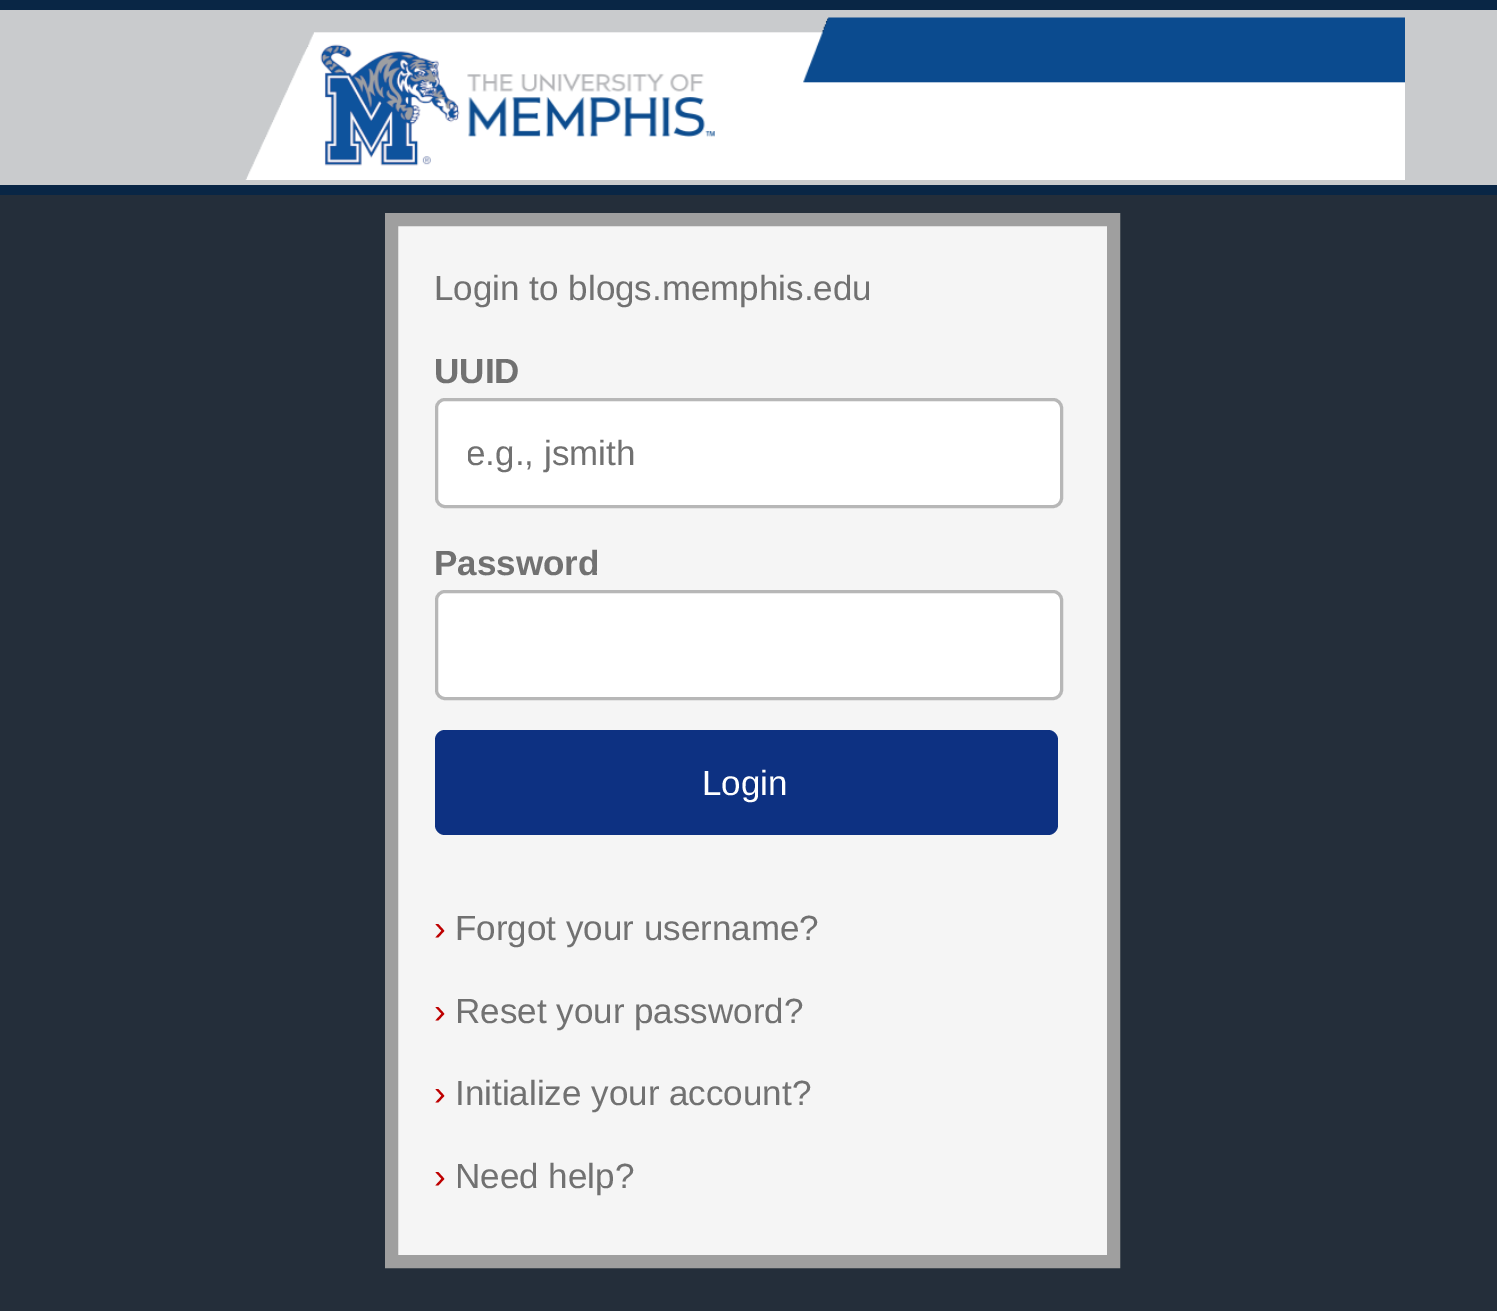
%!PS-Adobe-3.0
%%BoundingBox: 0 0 1497 1311
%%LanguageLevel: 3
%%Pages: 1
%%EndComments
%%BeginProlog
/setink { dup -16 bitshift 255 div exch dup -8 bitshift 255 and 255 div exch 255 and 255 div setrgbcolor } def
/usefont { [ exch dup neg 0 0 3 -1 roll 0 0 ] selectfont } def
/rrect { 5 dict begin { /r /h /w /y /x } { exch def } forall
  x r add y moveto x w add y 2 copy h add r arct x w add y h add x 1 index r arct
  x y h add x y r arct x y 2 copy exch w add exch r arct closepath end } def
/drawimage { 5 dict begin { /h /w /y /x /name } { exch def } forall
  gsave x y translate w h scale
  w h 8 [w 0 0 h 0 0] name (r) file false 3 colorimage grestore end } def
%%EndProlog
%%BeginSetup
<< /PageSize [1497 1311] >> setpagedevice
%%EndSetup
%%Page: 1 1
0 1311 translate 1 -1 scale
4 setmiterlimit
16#242E3A setink
0 0 1497 1311 rectfill
16#C9CBCD setink
0 10 1497 175 rectfill
(img1.raw) 245 17 1160 163 drawimage
16#092645 setink
0 0 1497 10 rectfill
0 185 1497 10 rectfill
16#F5F5F5 setink
391.5 219.5 moveto 1113.5 219.5 lineto 1113.5 1261.5 lineto 391.5 1261.5 lineto closepath gsave fill grestore
16#9F9F9F setink
13 setlinewidth
stroke
/LiberationSans-Regular 35 usefont
16#717171 setink
434 300 moveto (Login to blogs.memphis.edu) show
/LiberationSans-Bold 35 usefont
434 383 moveto (UUID) show
16#FFFFFF setink
436.5 399.5 625 107 8.5 rrect gsave fill grestore
16#B7B7B7 setink
3 setlinewidth
stroke
gsave
468 433 562 40 rectclip
/LiberationSans-Regular 35 usefont
16#717171 setink
466 465 moveto (e.g., jsmith) show
grestore
16#717171 setink
434 575 moveto (Password) show
16#FFFFFF setink
436.5 591.5 625 107 8.5 rrect gsave fill grestore
16#B7B7B7 setink
stroke
16#0D3182 setink
435 730 623 105 10 rrect fill
/LiberationSans-Regular 35 usefont
16#FFFFFF setink
702 795 moveto (Login) show
16#BE0000 setink
434 940 moveto (›) show
16#717171 setink
455 940 moveto (Forgot your username?) show
16#BE0000 setink
434 1023 moveto (›) show
16#717171 setink
455 1023 moveto (Reset your password?) show
16#BE0000 setink
434 1105 moveto (›) show
16#717171 setink
455 1105 moveto (Initialize your account?) show
16#BE0000 setink
434 1188 moveto (›) show
16#717171 setink
455 1188 moveto (Need help?) show
showpage
%%EOF
